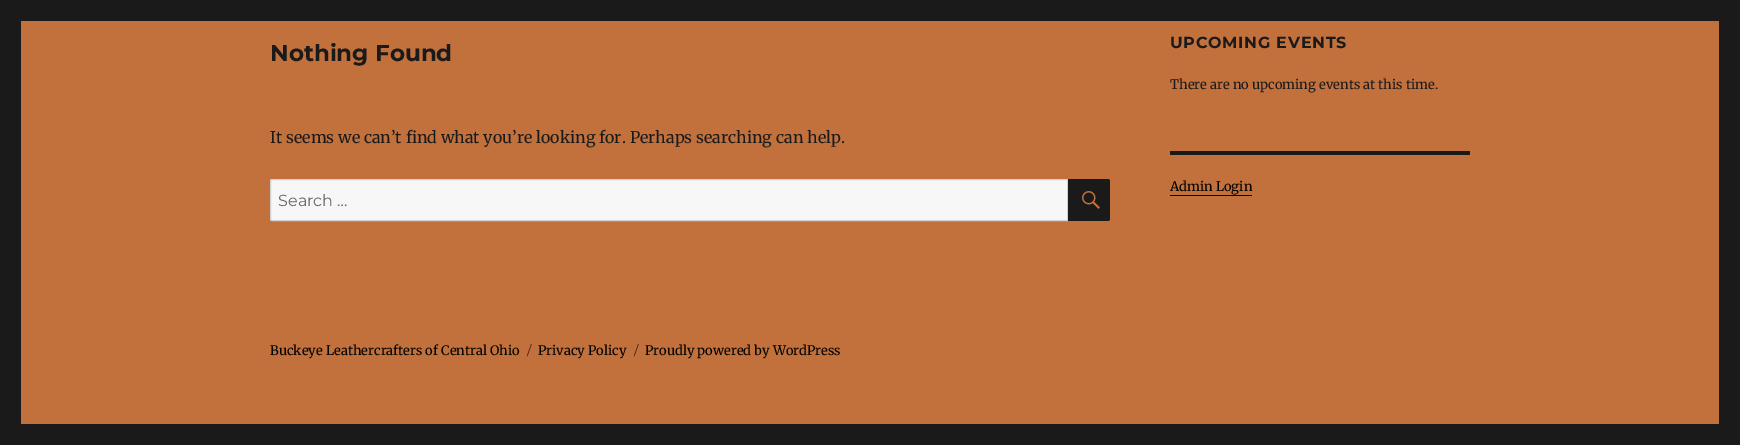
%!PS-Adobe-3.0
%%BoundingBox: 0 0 1740 445
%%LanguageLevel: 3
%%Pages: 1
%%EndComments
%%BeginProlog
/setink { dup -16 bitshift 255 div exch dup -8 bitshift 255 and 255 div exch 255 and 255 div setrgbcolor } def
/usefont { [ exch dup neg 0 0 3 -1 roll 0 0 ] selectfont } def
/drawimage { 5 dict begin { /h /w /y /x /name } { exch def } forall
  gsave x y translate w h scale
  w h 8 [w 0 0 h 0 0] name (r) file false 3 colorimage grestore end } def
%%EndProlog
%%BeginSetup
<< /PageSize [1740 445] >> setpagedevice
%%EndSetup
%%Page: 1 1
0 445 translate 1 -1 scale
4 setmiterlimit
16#1A1A1A setink
0 0 1740 445 rectfill
16#C2713D setink
21 21 1698 403 rectfill
/Montserrat-Bold 23 usefont
16#1A1A1A setink
270 61 moveto (Nothing Found) show
/Merriweather-Regular 16 usefont
270 143 moveto (It seems we can’t find what you’re looking for. Perhaps searching can help.) show
16#F7F7F7 setink
272 179.5 moveto 1067.5 179.5 lineto 1067.5 220.5 lineto 272 220.5 lineto 271 220.5 270.5 220 270.5 219 curveto 270.5 181 lineto 270.5 180 271 179.5 272 179.5 curveto closepath gsave fill grestore
16#D1D1D1 setink
stroke
/Montserrat-Regular 16 usefont
16#686868 setink
278 206 moveto (Search …) show
16#1A1A1A setink
1068 179 moveto 1108 179 lineto 1109 179 1110 180 1110 181 curveto 1110 219 lineto 1110 220 1109 221 1108 221 curveto 1068 221 lineto closepath fill
(img1.raw) 1082 191 18 18 drawimage
/Montserrat-Bold 16 usefont
1170 48 moveto 0.75 0 (UPCOMING EVENTS) ashow
/Merriweather-Regular 13 usefont
1170 89 moveto (There are no upcoming events at this time.) show
1170 151 300 4 rectfill
16#000000 setink
1170 191 moveto (Admin Login) show
1170 195 82 1 rectfill
270 355 moveto (Buckeye Leathercrafters of Central Ohio) show
/Montserrat-Regular 13 usefont
16#3A2212 setink
527 355 moveto (/) show
/Merriweather-Regular 13 usefont
16#000000 setink
538 355 moveto (Privacy Policy) show
/Montserrat-Regular 13 usefont
16#3A2212 setink
634 355 moveto (/) show
/Merriweather-Regular 13 usefont
16#000000 setink
645 355 moveto (Proudly powered by WordPress) show
showpage
%%EOF
